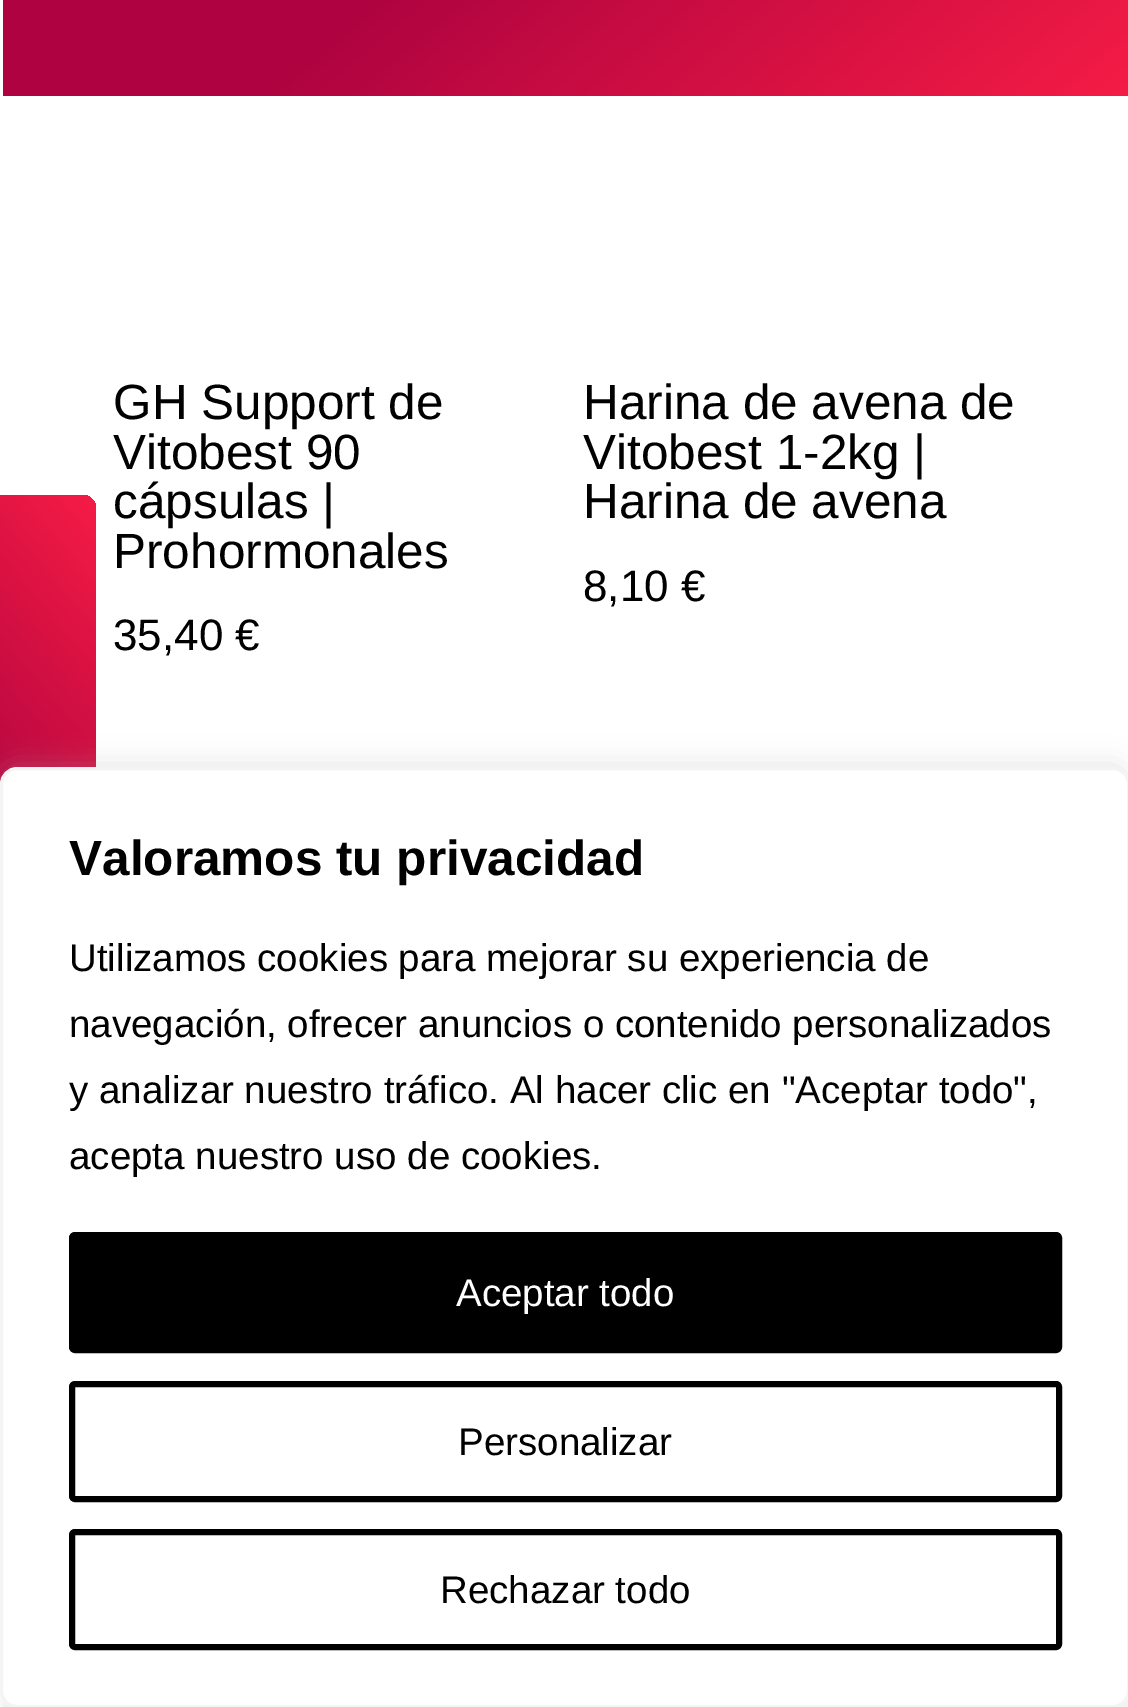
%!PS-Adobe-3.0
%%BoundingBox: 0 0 1128 1707
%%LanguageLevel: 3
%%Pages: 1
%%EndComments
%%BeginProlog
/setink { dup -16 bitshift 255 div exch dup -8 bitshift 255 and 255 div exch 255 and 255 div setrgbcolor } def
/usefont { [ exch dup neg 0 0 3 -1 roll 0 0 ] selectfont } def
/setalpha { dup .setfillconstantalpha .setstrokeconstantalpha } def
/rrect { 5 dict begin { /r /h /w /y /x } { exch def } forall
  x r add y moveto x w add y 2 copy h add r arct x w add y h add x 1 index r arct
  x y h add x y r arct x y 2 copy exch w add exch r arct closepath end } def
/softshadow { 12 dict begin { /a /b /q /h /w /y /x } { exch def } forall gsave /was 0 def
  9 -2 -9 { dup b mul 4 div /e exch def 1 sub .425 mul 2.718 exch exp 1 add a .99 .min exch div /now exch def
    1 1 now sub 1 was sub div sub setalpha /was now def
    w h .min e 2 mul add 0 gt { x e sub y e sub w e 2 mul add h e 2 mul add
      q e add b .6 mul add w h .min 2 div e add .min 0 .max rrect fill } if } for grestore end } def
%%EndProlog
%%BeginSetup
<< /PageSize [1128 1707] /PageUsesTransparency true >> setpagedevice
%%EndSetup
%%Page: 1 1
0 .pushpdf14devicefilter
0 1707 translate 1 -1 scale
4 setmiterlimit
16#FFFFFF setink
0 0 1128 1707 rectfill
gsave 3 0 moveto 1128 0 lineto 1128 96 lineto 3 96 lineto closepath clip newpath
<< /ShadingType 2 /ColorSpace /DeviceRGB /Coords [309 -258 824 355] /Extend [true true] /Function << /FunctionType 3 /Domain [0 1] /Functions [<< /FunctionType 2 /Domain [0 1] /C0 [0.682 0.012 0.251] /C1 [0.682 0.012 0.251] /N 1 >> << /FunctionType 2 /Domain [0 1] /C0 [0.682 0.012 0.251] /C1 [0.957 0.11 0.271] /N 1 >> << /FunctionType 2 /Domain [0 1] /C0 [0.957 0.11 0.271] /C1 [0.957 0.11 0.271] /N 1 >>] /Bounds [0.29 0.99] /Encode [0 1 0 1 0 1] >> >> shfill grestore
16#FAFAFA setink
3 1699 1125 8 rectfill
gsave 0 1056 moveto 0 495 lineto 82 495 lineto 90 495 96 501 96 509 curveto 96 1042 lineto 96 1050 90 1056 82 1056 curveto closepath clip newpath
<< /ShadingType 2 /ColorSpace /DeviceRGB /Coords [-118 915 214 636] /Extend [true true] /Function << /FunctionType 3 /Domain [0 1] /Functions [<< /FunctionType 2 /Domain [0 1] /C0 [0.682 0.012 0.251] /C1 [0.682 0.012 0.251] /N 1 >> << /FunctionType 2 /Domain [0 1] /C0 [0.682 0.012 0.251] /C1 [0.957 0.11 0.271] /N 1 >> << /FunctionType 2 /Domain [0 1] /C0 [0.957 0.11 0.271] /C1 [0.957 0.11 0.271] /N 1 >>] /Bounds [0.29 0.99] /Encode [0 1 0 1 0 1] >> >> shfill grestore
/LiberationSans-Regular 49.5 usefont
16#000000 setink
[
    [(GH Support de) 113 419]
    [(Vitobest 90) 113 469]
    [(cápsulas |) 113 518]
    [(Prohormonales) 113 568]
] { aload pop moveto show } forall
/LiberationSans-Regular 44 usefont
113 650 moveto (35,40 €) show
/LiberationSans-Regular 49.5 usefont
[
    [(Harina de avena de) 583 419]
    [(Vitobest 1-2kg |) 583 469]
    [(Harina de avena) 583 518]
] { aload pop moveto show } forall
/LiberationSans-Regular 44 usefont
583 601 moveto (8,10 €) show
16#ACABAB setink
0 765 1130 940 17 14 0.3 softshadow
16#FFFFFF setink
1.5 768.5 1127 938 15.5 rrect gsave fill grestore
16#F4F4F4 setink
3 setlinewidth
stroke
/LiberationSans-Bold 49.5 usefont
16#000000 setink
69 875 moveto (Valoramos tu privacidad) show
/LiberationSans-Regular 38.5 usefont
[
    [(Utilizamos cookies para mejorar su experiencia de) 69 971]
    [(navegación, ofrecer anuncios o contenido personalizados) 69 1037]
    [(y analizar nuestro tráfico. Al hacer clic en "Aceptar todo",) 69 1103]
    [(acepta nuestro uso de cookies.) 69 1169]
] { aload pop moveto show } forall
72 1235 987 115 3 rrect gsave fill grestore
6 setlinewidth
stroke
16#FFFFFF setink
456 1306 moveto (Aceptar todo) show
16#000000 setink
72 1384 987 115 3 rrect stroke
458 1455 moveto (Personalizar) show
72 1532 987 115 3 rrect stroke
440 1603 moveto (Rechazar todo) show
.poppdf14devicefilter showpage
%%EOF
